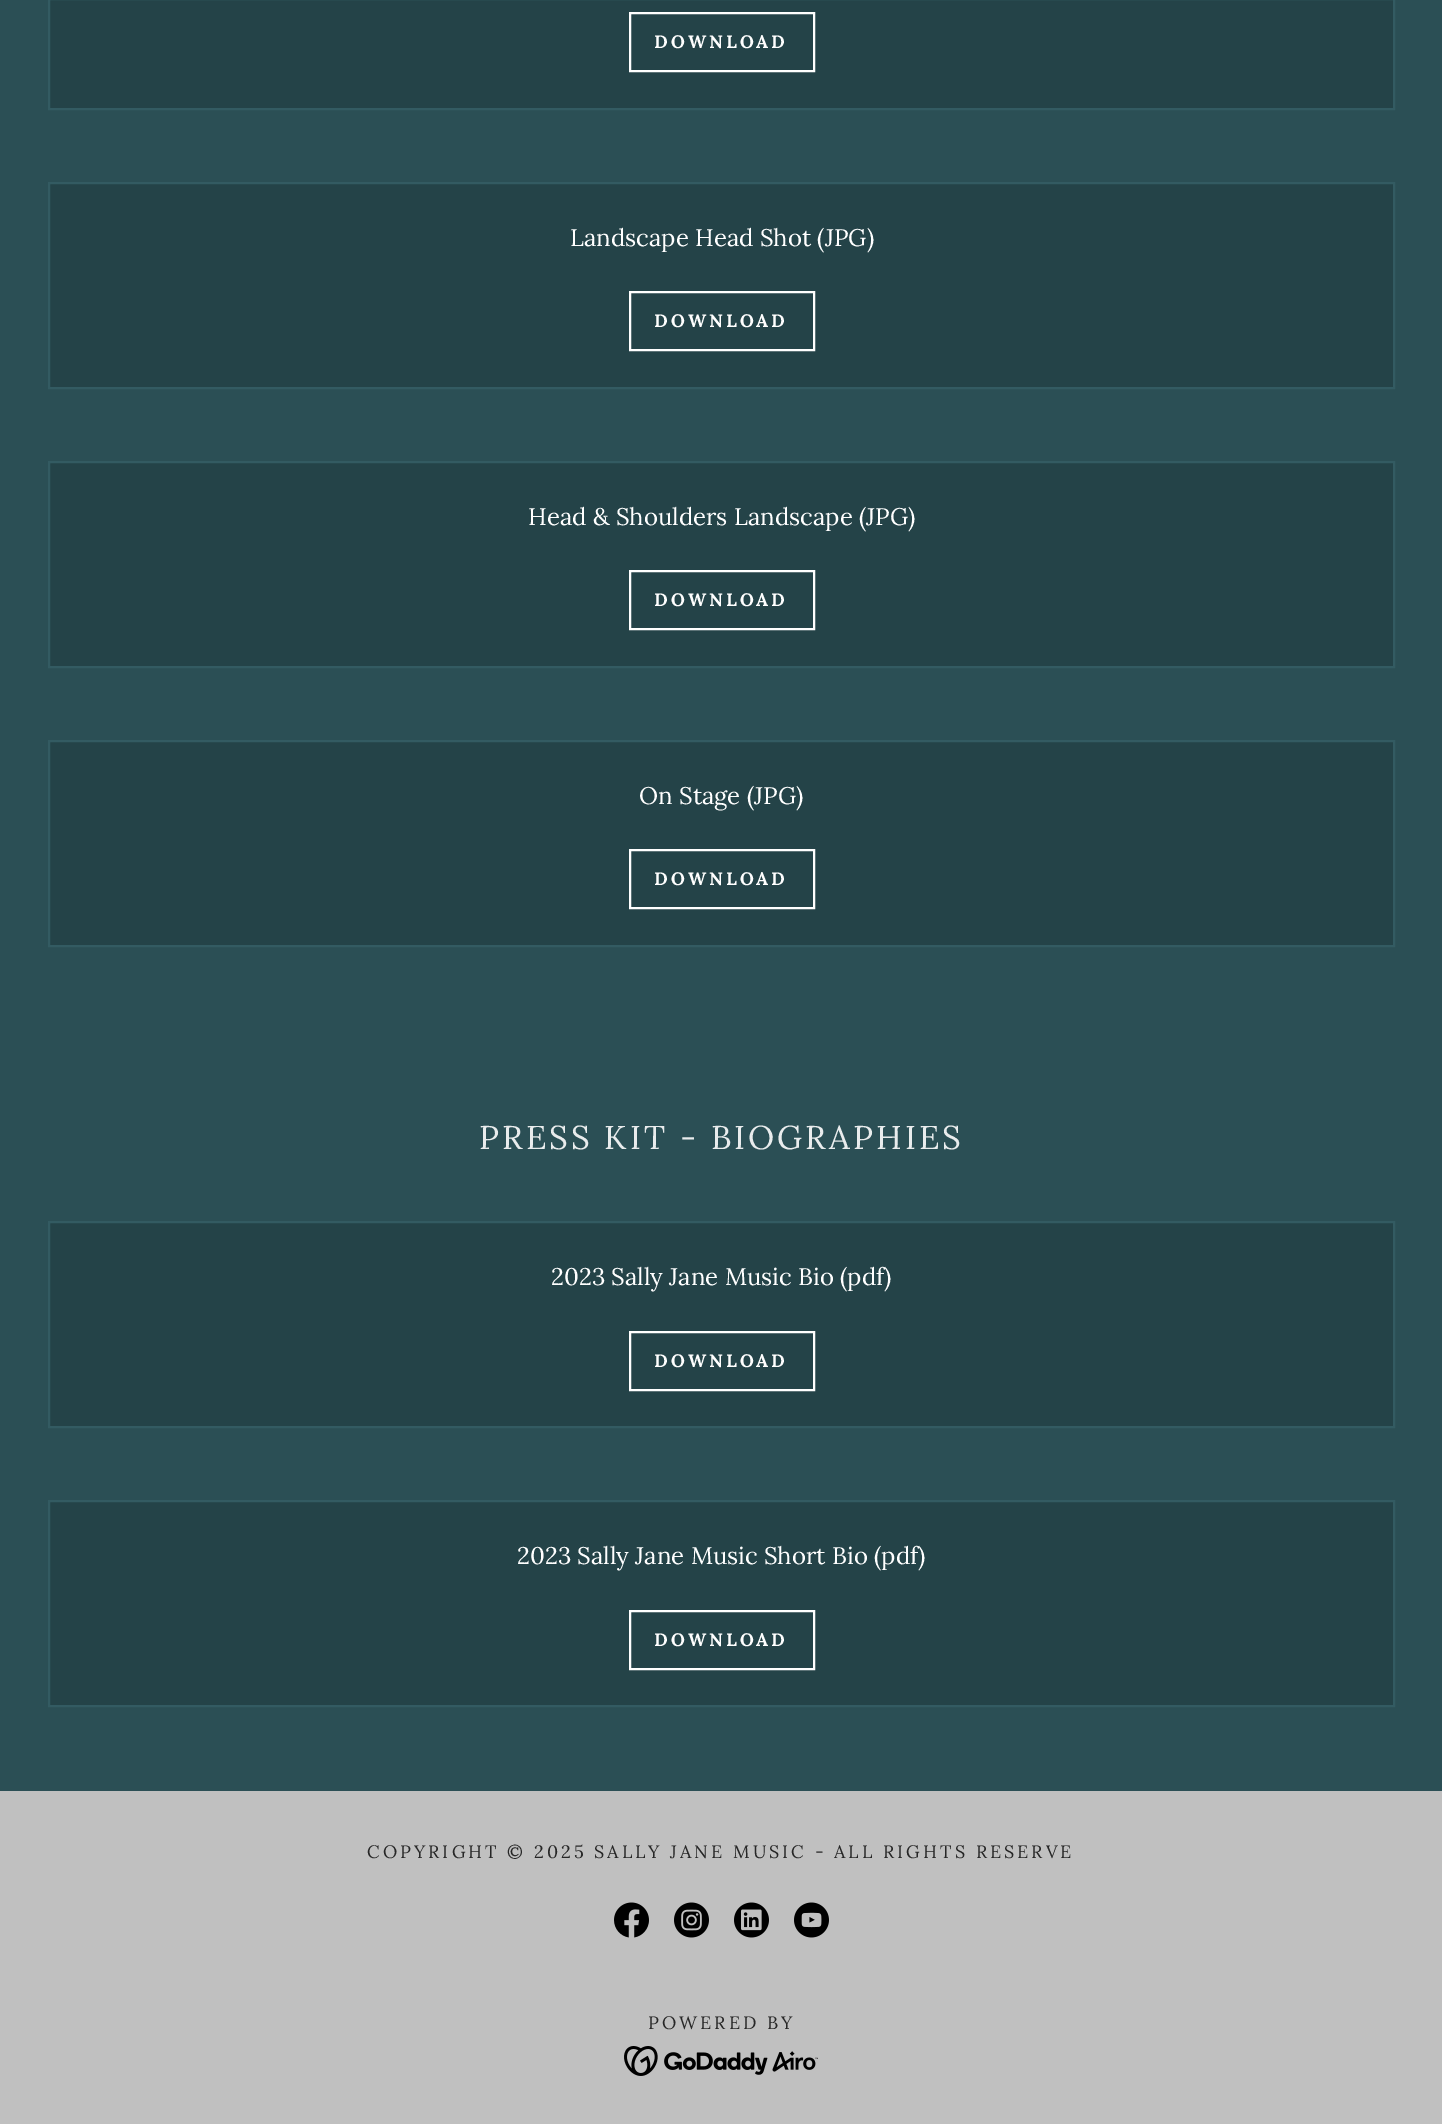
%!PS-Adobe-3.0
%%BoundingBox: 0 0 1442 2124
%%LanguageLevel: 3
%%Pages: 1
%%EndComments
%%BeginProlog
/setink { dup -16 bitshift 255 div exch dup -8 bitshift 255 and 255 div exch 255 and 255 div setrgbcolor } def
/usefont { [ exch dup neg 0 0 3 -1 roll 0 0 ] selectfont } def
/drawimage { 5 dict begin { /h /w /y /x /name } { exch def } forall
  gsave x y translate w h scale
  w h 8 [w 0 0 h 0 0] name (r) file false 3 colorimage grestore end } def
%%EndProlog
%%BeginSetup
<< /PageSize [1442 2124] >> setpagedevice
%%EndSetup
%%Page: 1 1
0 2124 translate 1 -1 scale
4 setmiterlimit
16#2B4F55 setink
0 0 1442 2124 rectfill
16#244348 setink
49 -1 moveto 1394 -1 lineto 1394 109 lineto 49 109 lineto closepath gsave fill grestore
16#335B62 setink
2 setlinewidth
stroke
16#FFFFFF setink
630 13 184 58 rectstroke
/Lora-Bold 18 usefont
654 48 moveto 3 0 (DOWNLOAD) ashow
16#244348 setink
49 183 moveto 1394 183 lineto 1394 388 lineto 49 388 lineto closepath gsave fill grestore
16#335B62 setink
stroke
/Lora-Regular 24 usefont
16#FFFFFF setink
570 246 moveto (Landscape Head Shot \(JPG\)) show
630 292 184 58 rectstroke
/Lora-Bold 18 usefont
654 327 moveto 3 0 (DOWNLOAD) ashow
16#244348 setink
49 462 moveto 1394 462 lineto 1394 667 lineto 49 667 lineto closepath gsave fill grestore
16#335B62 setink
stroke
/Lora-Regular 24 usefont
16#FFFFFF setink
528 525 moveto (Head & Shoulders Landscape \(JPG\)) show
630 571 184 58 rectstroke
/Lora-Bold 18 usefont
654 606 moveto 3 0 (DOWNLOAD) ashow
16#244348 setink
49 741 moveto 1394 741 lineto 1394 946 lineto 49 946 lineto closepath gsave fill grestore
16#335B62 setink
stroke
/Lora-Regular 24 usefont
16#FFFFFF setink
639 804 moveto (On Stage \(JPG\)) show
630 850 184 58 rectstroke
/Lora-Bold 18 usefont
654 885 moveto 3 0 (DOWNLOAD) ashow
/Lora-Regular 33 usefont
16#E9ECED setink
479 1149 moveto 3 0 (PRESS KIT - BIOGRAPHIES) ashow
16#244348 setink
49 1222 moveto 1394 1222 lineto 1394 1427 lineto 49 1427 lineto closepath gsave fill grestore
16#335B62 setink
stroke
/Lora-Regular 24 usefont
16#FFFFFF setink
551 1285 moveto (2023 Sally Jane Music Bio \(pdf\)) show
630 1332 184 58 rectstroke
/Lora-Bold 18 usefont
654 1367 moveto 3 0 (DOWNLOAD) ashow
16#244348 setink
49 1501 moveto 1394 1501 lineto 1394 1706 lineto 49 1706 lineto closepath gsave fill grestore
16#335B62 setink
stroke
/Lora-Regular 24 usefont
16#FFFFFF setink
517 1564 moveto (2023 Sally Jane Music Short Bio \(pdf\)) show
630 1611 184 58 rectstroke
/Lora-Bold 18 usefont
654 1646 moveto 3 0 (DOWNLOAD) ashow
16#C0C0C0 setink
0 1791 1442 333 rectfill
/Lora-Regular 18 usefont
16#272727 setink
367 1858 moveto 3 0 (COPYRIGHT © 2025 SALLY JANE MUSIC - ALL RIGHTS RESERVE) ashow
(img1.raw) 614 1902 35 36 drawimage
(img2.raw) 674 1902 35 36 drawimage
(img3.raw) 734 1902 35 36 drawimage
(img4.raw) 794 1902 35 36 drawimage
648 2029 moveto 3 0 (POWERED BY) ashow
(img5.raw) 624 2046 194 30 drawimage
showpage
%%EOF
